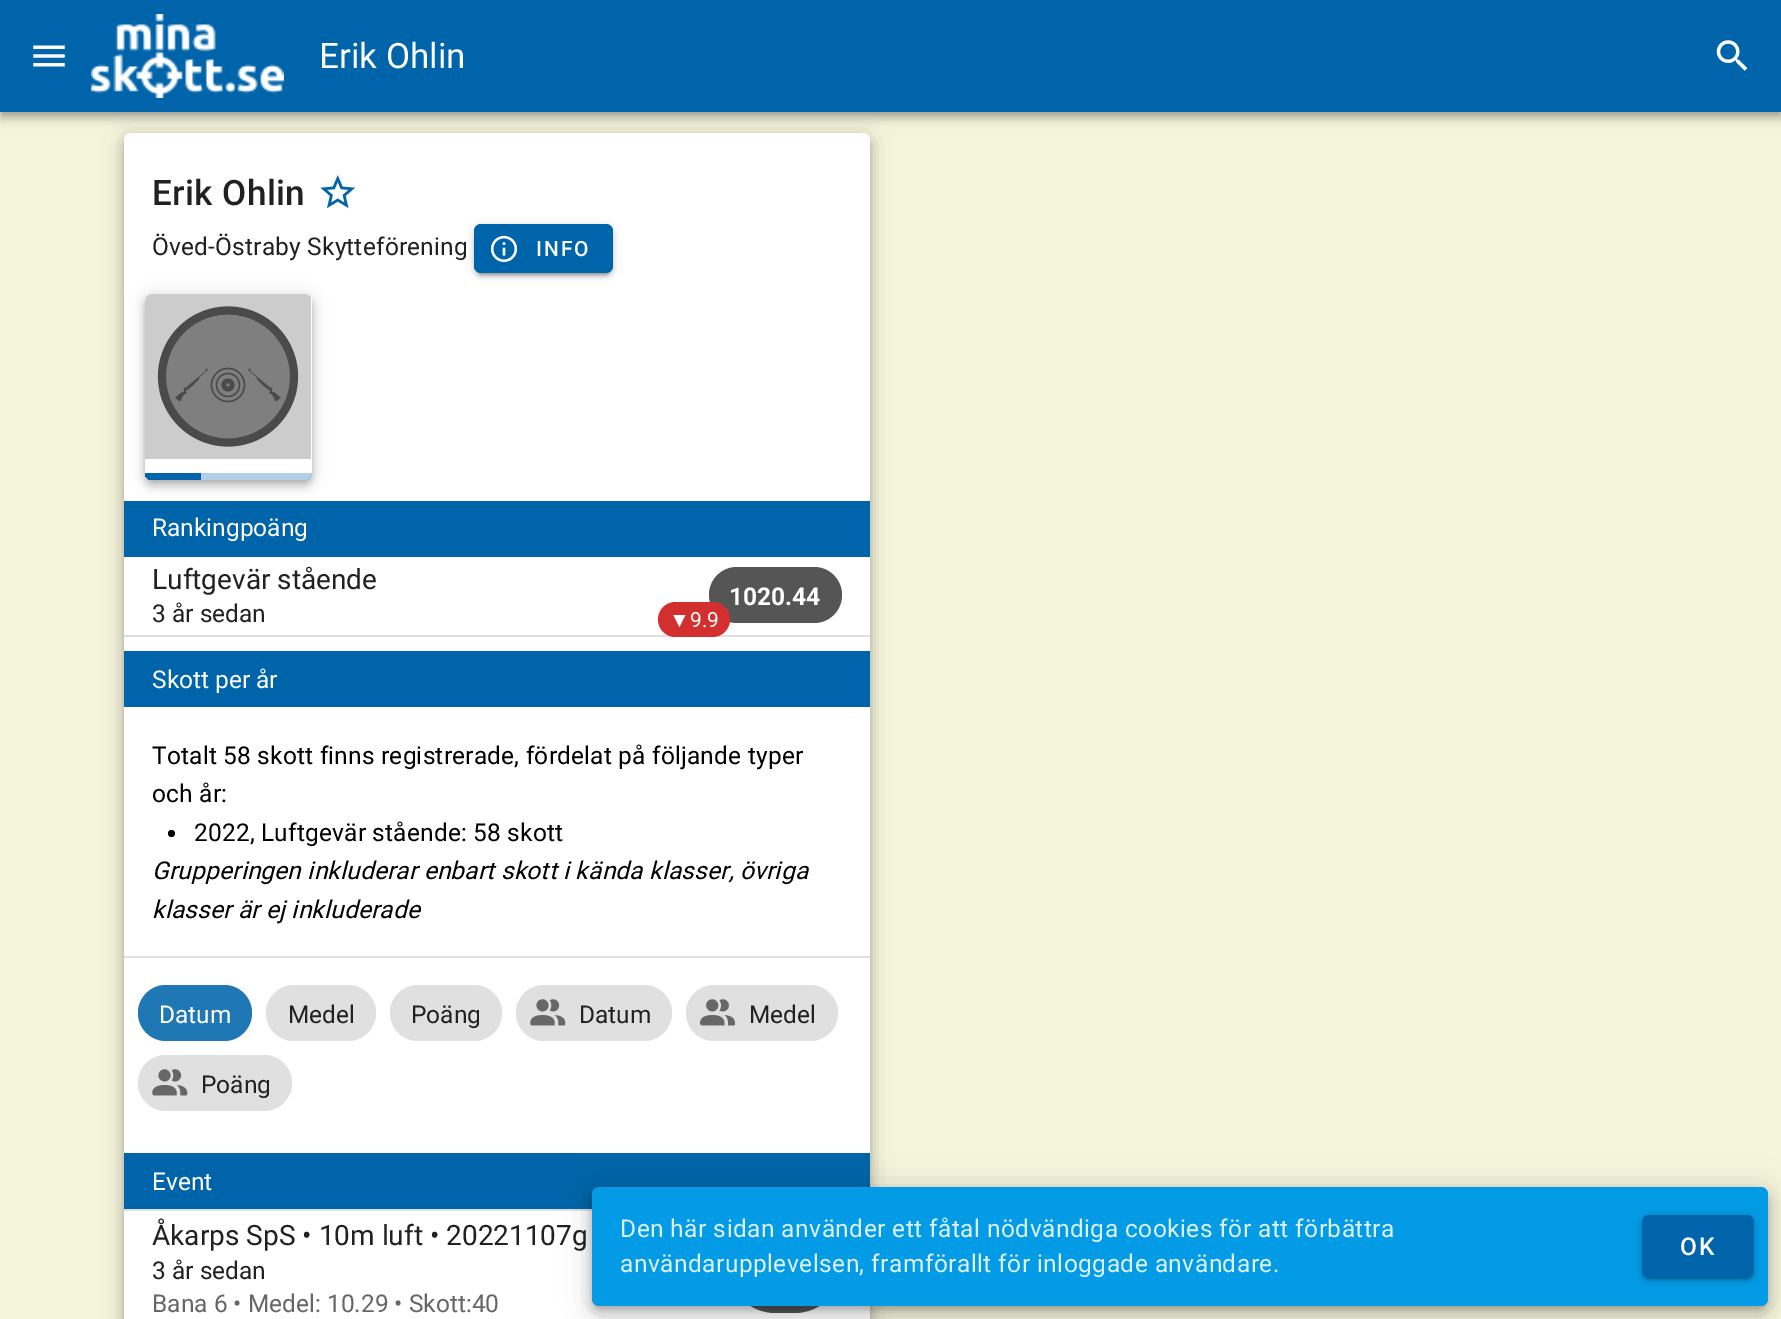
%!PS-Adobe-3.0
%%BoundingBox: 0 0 1781 1319
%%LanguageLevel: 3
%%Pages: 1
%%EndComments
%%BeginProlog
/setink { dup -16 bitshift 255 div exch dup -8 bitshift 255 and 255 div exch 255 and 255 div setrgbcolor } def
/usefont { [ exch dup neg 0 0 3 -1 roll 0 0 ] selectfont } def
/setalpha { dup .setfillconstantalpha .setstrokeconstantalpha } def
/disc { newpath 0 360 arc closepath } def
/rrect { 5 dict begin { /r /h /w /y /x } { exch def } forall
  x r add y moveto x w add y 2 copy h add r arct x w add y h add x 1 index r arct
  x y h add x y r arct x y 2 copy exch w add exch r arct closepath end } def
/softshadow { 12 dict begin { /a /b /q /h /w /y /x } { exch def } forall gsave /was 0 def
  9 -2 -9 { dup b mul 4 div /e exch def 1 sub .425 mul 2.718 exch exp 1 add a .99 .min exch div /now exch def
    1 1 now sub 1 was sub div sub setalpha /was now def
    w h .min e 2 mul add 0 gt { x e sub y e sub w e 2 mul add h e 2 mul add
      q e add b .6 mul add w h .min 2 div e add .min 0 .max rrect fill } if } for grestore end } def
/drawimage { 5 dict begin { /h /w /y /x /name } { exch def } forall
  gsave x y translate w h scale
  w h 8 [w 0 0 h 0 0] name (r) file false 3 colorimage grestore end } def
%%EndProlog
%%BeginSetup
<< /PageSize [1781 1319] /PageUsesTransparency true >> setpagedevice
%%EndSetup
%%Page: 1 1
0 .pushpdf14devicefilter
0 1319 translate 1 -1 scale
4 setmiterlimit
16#F5F5DC setink
0 0 1781 1319 rectfill
16#000000 setink
124 135 746 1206 7 12 0.12 softshadow
124 142 746 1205 7 7 0.14 softshadow
126 140 742 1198 5 4.5 0.2 softshadow
16#FFFFFF setink
124 133 746 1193 7 rrect fill
16#000000 setink
0 2 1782 112 0 9 0.12 softshadow
0 7 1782 112 0 4.5 0.14 softshadow
2 5 1778 109 0 3.5 0.2 softshadow
16#0064AA setink
0 0 1781 112 rectfill
(img1.raw) 33 45 32 22 drawimage
(img2.raw) 91 14 193 84 drawimage
/Roboto-Regular 35 usefont
16#FFFFFF setink
319 68 moveto (Erik Ohlin) show
(img3.raw) 1716 40 32 31 drawimage
/Roboto-Medium 35 usefont
16#212121 setink
152 205 moveto 0.45 0 (Erik Ohlin) ashow
(img4.raw) 320 175 35 34 drawimage
/Roboto-Regular 24.5 usefont
152 255 moveto 0.18 0 (Öved-Östraby Skytteförening) ashow
16#000000 setink
474 226 139 49 7 4.5 0.12 softshadow
474 228 139 49 7 2 0.14 softshadow
478 233 131 42 4 1 0.2 softshadow
16#0064AA setink
474 224 139 49 7 rrect fill
(img5.raw) 490 235 28 27 drawimage
/Roboto-Medium 21 usefont
16#FFFFFF setink
536 256 moveto 2 0 (INFO) ashow
16#0064AA setink
124 501 746 56 rectfill
16#000000 setink
145 296 167 185 7 9 0.12 softshadow
145 301 167 186 7 4.5 0.14 softshadow
147 299 163 182 5 3.5 0.2 softshadow
16#FFFFFF setink
145 294 167 186 7 rrect fill
(img6.raw) 145 294 166 165 drawimage
gsave
145 473 moveto 312 473 lineto 312 477 309 480 305 480 curveto 152 480 lineto 148 480 145 477 145 473 curveto closepath clip newpath
16#0064AA setink
145 473 56 7 rectfill
0.3 setalpha
201 473 111 7 rectfill
grestore
/Roboto-Regular 24.5 usefont
152 536 moveto (Rankingpoäng) show
/Roboto-Regular 28 usefont
16#212121 setink
152 589 moveto (Luftgevär stående) show
/Roboto-Regular 24.5 usefont
152 622 moveto (3 år sedan) show
16#555555 setink
709 567 133 56 28 rrect fill
/Roboto-Bold 24.5 usefont
16#FFFFFF setink
729 605 moveto (1020.44) show
16#E0E0E0 setink
124 635 746 2 rectfill
16#D32F2F setink
658 602 72 35 17.5 rrect fill
/LiberationSans-Regular 21 usefont
16#FFFFFF setink
669 627 moveto (▼) show
/Roboto-Regular 21 usefont
690 627 moveto (9.9) show
16#0064AA setink
124 651 746 56 rectfill
/Roboto-Regular 24.5 usefont
16#FFFFFF setink
152 688 moveto (Skott per år) show
16#000000 setink
152 764 moveto 0.18 0 (Totalt 58 skott finns registrerade, fördelat på följande typer) ashow
152 802 moveto 0.18 0 (och år:) ashow
171.5 833.5 3.5 disc fill
194 841 moveto 0.18 0 (2022, Luftgevär stående: 58 skott) ashow
/Roboto-Italic 24.5 usefont
152 879 moveto 0.18 0 (Grupperingen inkluderar enbart skott i kända klasser, övriga) ashow
152 918 moveto 0.18 0 (klasser är ej inkluderade) ashow
16#E0E0E0 setink
124 956 746 2 rectfill
16#0064AA setink
138 985 114 56 28 rrect fill
0.12 setalpha
16#FFFFFF setink
138 985 114 56 28 rrect fill
/Roboto-Regular 24.5 usefont
1 setalpha
159 1023 moveto (Datum) show
16#E0E0E0 setink
266 985 110 56 28 rrect fill
16#212121 setink
288 1023 moveto (Medel) show
16#E0E0E0 setink
390 985 112 56 28 rrect fill
16#212121 setink
411 1023 moveto (Poäng) show
16#E0E0E0 setink
516 985 156 56 28 rrect fill
(img7.raw) 530 999 36 27 drawimage
16#212121 setink
579 1023 moveto (Datum) show
16#E0E0E0 setink
686 985 152 56 28 rrect fill
(img8.raw) 700 999 35 27 drawimage
16#212121 setink
749 1023 moveto (Medel) show
16#E0E0E0 setink
138 1055 154 56 28 rrect fill
(img7.raw) 152 1069 36 27 drawimage
16#212121 setink
201 1093 moveto (Poäng) show
16#0064AA setink
124 1153 746 56 rectfill
16#FFFFFF setink
152 1190 moveto (Event) show
16#E0E0E0 setink
124 1209 468 2 rectfill
/Roboto-Regular 28 usefont
16#212121 setink
152 1245 moveto (Åkarps SpS • 10m luft • 20221107g) show
/Roboto-Regular 24.5 usefont
152 1279 moveto (3 år sedan) show
16#666666 setink
152 1312 moveto (Bana 6 • Medel: 10.29 • Skott:40) show
16#555555 setink
728 1218 114 95 47.5 rrect fill
16#000000 setink
592 1188 1176 119 7 16 0.12 softshadow
592 1197 1176 119 7 9 0.14 softshadow
593 1194 1173 115 5 4.5 0.2 softshadow
16#039BE5 setink
592 1187 1176 119 7 rrect fill
16#DEF2FC setink
620 1237 moveto 0.45 0 (Den här sidan använder ett fåtal nödvändiga cookies för att förbättra) ashow
620 1272 moveto 0.45 0 (användarupplevelsen, framförallt för inloggade användare.) ashow
16#000000 setink
1642 1216 112 63 7 4.5 0.12 softshadow
1642 1218 112 63 7 2 0.14 softshadow
1645 1223 105 56 4 1 0.2 softshadow
16#0064AA setink
1642 1215 112 63 7 rrect fill
/Roboto-Medium 24.5 usefont
16#FFFFFF setink
1680 1255 moveto 2 0 (OK) ashow
.poppdf14devicefilter showpage
%%EOF
